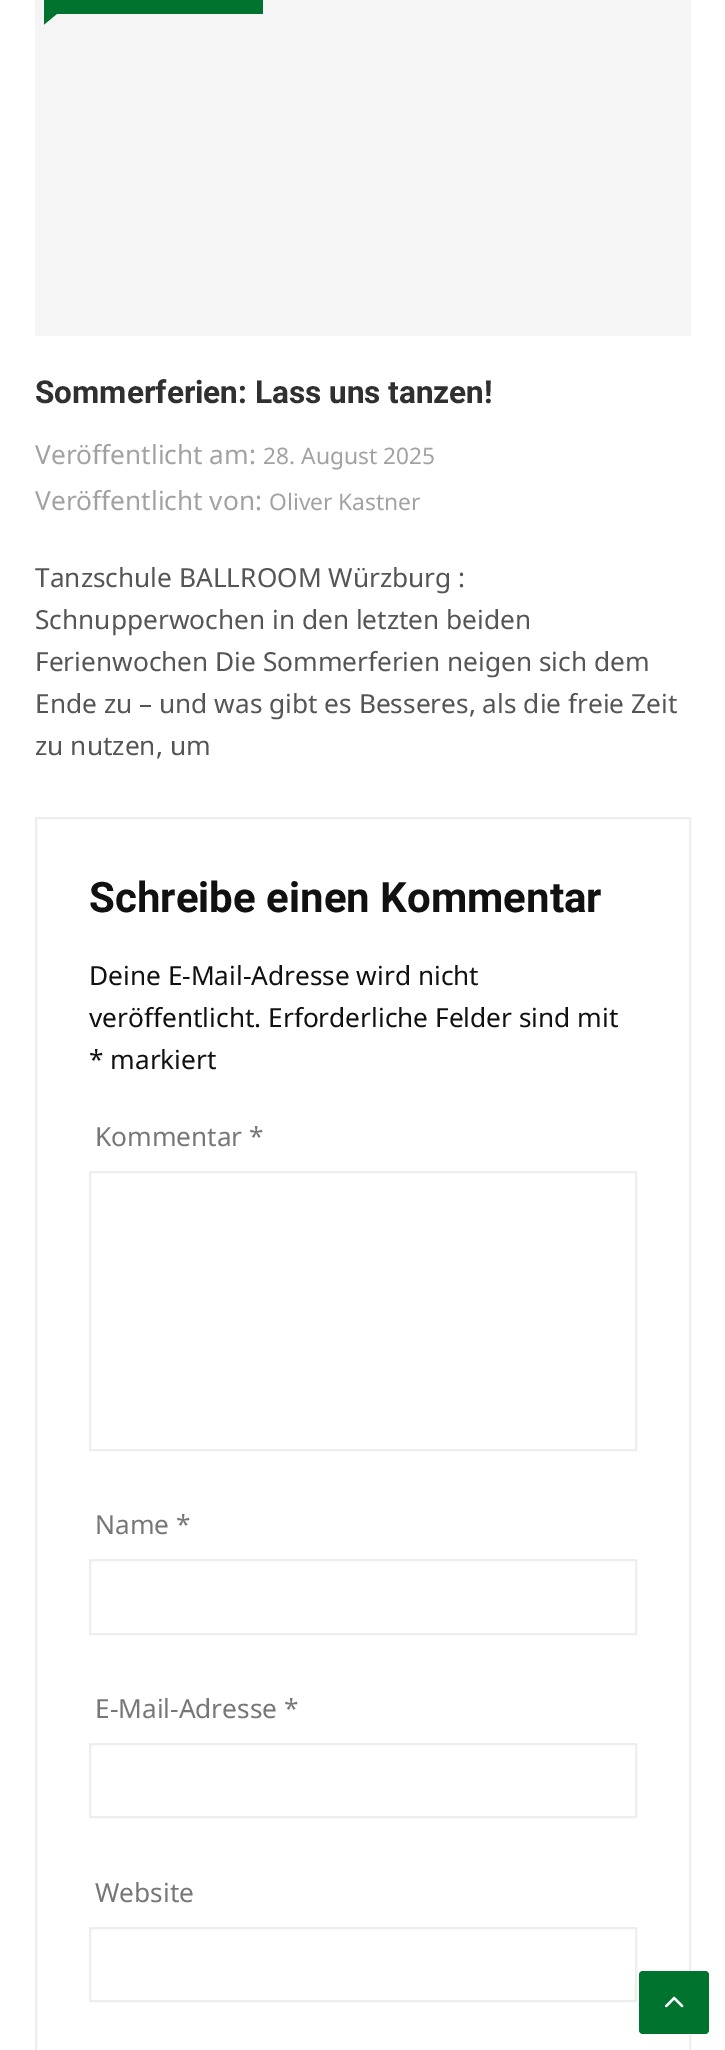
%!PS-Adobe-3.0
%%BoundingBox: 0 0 725 2050
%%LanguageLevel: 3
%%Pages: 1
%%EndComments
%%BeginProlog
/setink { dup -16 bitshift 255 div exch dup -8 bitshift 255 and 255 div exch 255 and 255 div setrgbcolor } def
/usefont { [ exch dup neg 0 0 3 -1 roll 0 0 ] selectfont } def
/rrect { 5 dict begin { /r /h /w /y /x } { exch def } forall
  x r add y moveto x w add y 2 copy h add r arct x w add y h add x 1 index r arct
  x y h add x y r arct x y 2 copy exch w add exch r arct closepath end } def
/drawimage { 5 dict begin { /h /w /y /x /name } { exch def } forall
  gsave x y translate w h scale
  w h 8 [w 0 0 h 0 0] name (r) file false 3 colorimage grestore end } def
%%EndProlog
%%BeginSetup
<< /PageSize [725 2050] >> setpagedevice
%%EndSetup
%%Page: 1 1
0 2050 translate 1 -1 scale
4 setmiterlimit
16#FFFFFF setink
0 0 725 2050 rectfill
16#F5F5F5 setink
35 0 656 336 rectfill
16#00732E setink
44 0 219 14 rectfill
44 10.5 moveto 61 10.5 lineto 44 24.5 lineto closepath fill
/Roboto-Bold 31.5 usefont
16#303030 setink
35 403 moveto (Sommerferien: Lass uns tanzen!) show
/NotoSans-Regular 26.25 usefont
16#A2A2A2 setink
35 464 moveto (Veröffentlicht am:) show
/NotoSans-Regular 22.75 usefont
263 464 moveto (28. August 2025) show
/NotoSans-Regular 26.25 usefont
35 510 moveto (Veröffentlicht von:) show
/NotoSans-Regular 22.75 usefont
269 510 moveto (Oliver Kastner) show
/NotoSans-Regular 26.25 usefont
16#555555 setink
[
    [(Tanzschule BALLROOM Würzburg :) 35 587]
    [(Schnupperwochen in den letzten beiden) 35 629]
    [(Ferienwochen Die Sommerferien neigen sich dem) 35 671]
    [(Ende zu – und was gibt es Besseres, als die freie Zeit) 35 713]
    [(zu nutzen, um) 35 755]
] { aload pop moveto show } forall
16#EEEEEE setink
2 setlinewidth
36 818 654 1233 rectstroke
/Roboto-Bold 42 usefont
16#111111 setink
89 912 moveto (Schreibe einen Kommentar) show
/NotoSans-Regular 26.25 usefont
[
    [(Deine E-Mail-Adresse wird nicht) 89 985]
    [(veröffentlicht. Erforderliche Felder sind mit) 89 1027]
    [(* markiert) 89 1069]
] { aload pop moveto show } forall
16#777777 setink
95 1146 moveto (Kommentar *) show
16#EEEEEE setink
90 1172 546 278 rectstroke
16#777777 setink
95 1534 moveto (Name *) show
16#EEEEEE setink
90 1560 546 74 rectstroke
16#777777 setink
95 1718 moveto (E-Mail-Adresse *) show
16#EEEEEE setink
90 1744 546 73 rectstroke
16#777777 setink
95 1902 moveto (Website) show
16#EEEEEE setink
90 1928 546 73 rectstroke
16#00732E setink
639 1971 70 63 4 rrect fill
(img1.raw) 665 1996 19 12 drawimage
showpage
%%EOF
